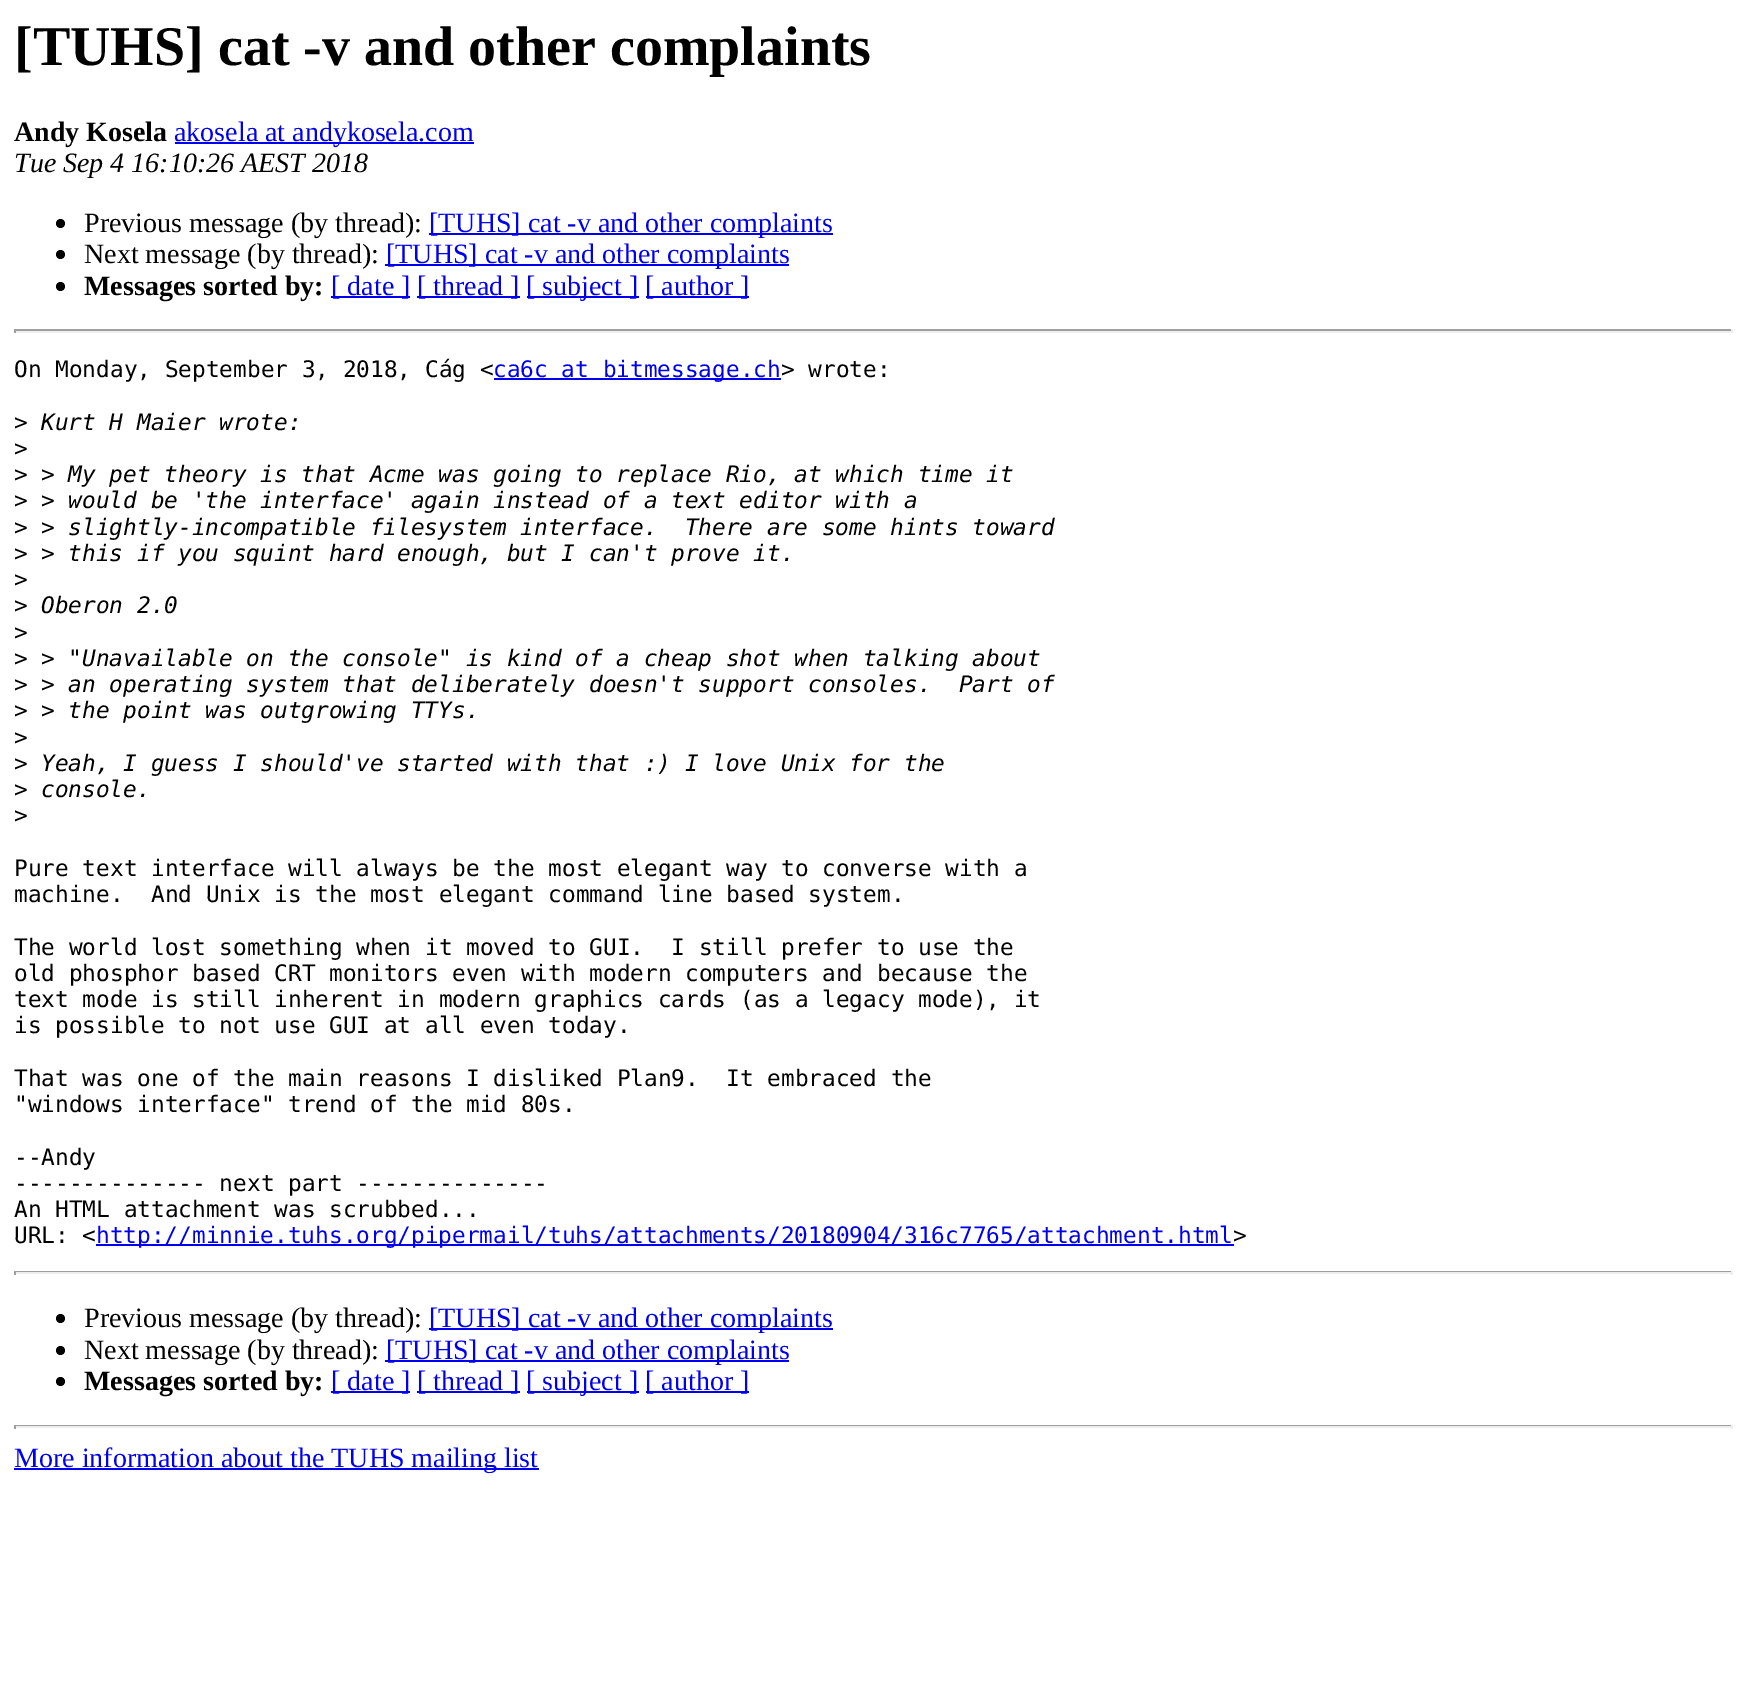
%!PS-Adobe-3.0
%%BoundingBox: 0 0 1746 1702
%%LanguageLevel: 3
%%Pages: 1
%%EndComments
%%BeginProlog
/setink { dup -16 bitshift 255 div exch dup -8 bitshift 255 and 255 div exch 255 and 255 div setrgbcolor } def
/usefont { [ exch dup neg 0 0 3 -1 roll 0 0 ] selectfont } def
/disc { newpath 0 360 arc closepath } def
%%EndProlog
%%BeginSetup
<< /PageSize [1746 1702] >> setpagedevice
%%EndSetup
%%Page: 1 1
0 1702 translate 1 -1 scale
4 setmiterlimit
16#FFFFFF setink
0 0 1746 1702 rectfill
/LiberationSerif-Bold 56 usefont
16#000000 setink
14 65 moveto ([TUHS] cat -v and other complaints) show
/LiberationSerif-Bold 28 usefont
14 141 moveto (Andy Kosela) show
16#0000EE setink
175 142 299 2 rectfill
/LiberationSerif-Regular 28 usefont
174 141 moveto (akosela at andykosela.com) show
/LiberationSerif-Italic 28 usefont
16#000000 setink
14 172 moveto (Tue Sep 4 16:10:26 AEST 2018) show
60.5 223.5 4.5 disc fill
/LiberationSerif-Regular 28 usefont
84 232 moveto (Previous message \(by thread\):) show
16#0000EE setink
429 233 404 2 rectfill
429 232 moveto ([TUHS] cat -v and other complaints) show
16#000000 setink
60.5 254.5 4.5 disc fill
84 263 moveto (Next message \(by thread\):) show
16#0000EE setink
385 264 404 2 rectfill
386 263 moveto ([TUHS] cat -v and other complaints) show
16#000000 setink
60.5 286.5 4.5 disc fill
/LiberationSerif-Bold 28 usefont
84 295 moveto (Messages sorted by:) show
16#0000EE setink
331 296 79 2 rectfill
/LiberationSerif-Regular 28 usefont
331 295 moveto ([ date ]) show
417 296 103 2 rectfill
417 295 moveto ([ thread ]) show
527 296 112 2 rectfill
526 295 moveto ([ subject ]) show
646 296 103 2 rectfill
645 295 moveto ([ author ]) show
[
    [14 329 1719 2 16#9F9F9F]
    [1731 329 2 4 16#EEEEEE]
    [14 331 1719 2 16#EEEEEE]
    [14 329 2 4 16#9F9F9F]
] { aload pop setink rectfill } forall
/DejaVuSansMono-Regular 22.75 usefont
16#000000 setink
14 377 moveto (On Monday, September 3, 2018, Cág <) show
16#0000EE setink
494 378 287 2 rectfill
493 377 moveto (ca6c at bitmessage.ch) show
16#000000 setink
781 377 moveto (> wrote:) show
14 430 moveto (>) show
/DejaVuSansMono-Italic 22.75 usefont
41 430 moveto (Kurt H Maier wrote:) show
/DejaVuSansMono-Regular 22.75 usefont
14 456 moveto (>) show
14 482 moveto (>) show
/DejaVuSansMono-Italic 22.75 usefont
41 482 moveto (> My pet theory is that Acme was going to replace Rio, at which time it) show
/DejaVuSansMono-Regular 22.75 usefont
14 508 moveto (>) show
/DejaVuSansMono-Italic 22.75 usefont
41 508 moveto (> would be 'the interface' again instead of a text editor with a) show
/DejaVuSansMono-Regular 22.75 usefont
14 535 moveto (>) show
/DejaVuSansMono-Italic 22.75 usefont
41 535 moveto (> slightly-incompatible filesystem interface.  There are some hints toward) show
/DejaVuSansMono-Regular 22.75 usefont
14 561 moveto (>) show
/DejaVuSansMono-Italic 22.75 usefont
41 561 moveto (> this if you squint hard enough, but I can't prove it.) show
/DejaVuSansMono-Regular 22.75 usefont
14 587 moveto (>) show
14 613 moveto (>) show
/DejaVuSansMono-Italic 22.75 usefont
41 613 moveto (Oberon 2.0) show
/DejaVuSansMono-Regular 22.75 usefont
14 640 moveto (>) show
14 666 moveto (>) show
/DejaVuSansMono-Italic 22.75 usefont
41 666 moveto (> "Unavailable on the console" is kind of a cheap shot when talking about) show
/DejaVuSansMono-Regular 22.75 usefont
14 692 moveto (>) show
/DejaVuSansMono-Italic 22.75 usefont
41 692 moveto (> an operating system that deliberately doesn't support consoles.  Part of) show
/DejaVuSansMono-Regular 22.75 usefont
14 718 moveto (>) show
/DejaVuSansMono-Italic 22.75 usefont
41 718 moveto (> the point was outgrowing TTYs.) show
/DejaVuSansMono-Regular 22.75 usefont
14 745 moveto (>) show
14 771 moveto (>) show
/DejaVuSansMono-Italic 22.75 usefont
41 771 moveto (Yeah, I guess I should've started with that :\) I love Unix for the) show
/DejaVuSansMono-Regular 22.75 usefont
14 797 moveto (>) show
/DejaVuSansMono-Italic 22.75 usefont
41 797 moveto (console.) show
/DejaVuSansMono-Regular 22.75 usefont
[
    [(>) 14 823]
    [(Pure text interface will always be the most elegant way to converse with a) 14 876]
    [(machine.  And Unix is the most elegant command line based system.) 14 902]
    [(The world lost something when it moved to GUI.  I still prefer to use the) 14 955]
    [(old phosphor based CRT monitors even with modern computers and because the) 14 981]
    [(text mode is still inherent in modern graphics cards \(as a legacy mode\), it) 14 1007]
    [(is possible to not use GUI at all even today.) 14 1033]
    [(That was one of the main reasons I disliked Plan9.  It embraced the) 14 1086]
    [("windows interface" trend of the mid 80s.) 14 1112]
    [(--Andy) 14 1165]
    [(-------------- next part --------------) 14 1191]
    [(An HTML attachment was scrubbed...) 14 1217]
    [(URL: <) 14 1243]
] { aload pop moveto show } forall
16#0000EE setink
96 1244 1138 2 rectfill
96 1243 moveto (http://minnie.tuhs.org/pipermail/tuhs/attachments/20180904/316c7765/attachment.html) show
16#000000 setink
1233 1243 moveto (>) show
[
    [14 1271 1719 1 16#9F9F9F]
    [1731 1271 2 4 16#EEEEEE]
    [14 1272 1719 2 16#EEEEEE]
    [14 1271 2 4 16#9F9F9F]
] { aload pop setink rectfill } forall
16#000000 setink
60.5 1318.5 4.5 disc fill
/LiberationSerif-Regular 28 usefont
84 1327 moveto (Previous message \(by thread\):) show
16#0000EE setink
429 1328 404 2 rectfill
429 1327 moveto ([TUHS] cat -v and other complaints) show
16#000000 setink
60.5 1350.5 4.5 disc fill
84 1359 moveto (Next message \(by thread\):) show
16#0000EE setink
385 1360 404 2 rectfill
386 1359 moveto ([TUHS] cat -v and other complaints) show
16#000000 setink
60.5 1381.5 4.5 disc fill
/LiberationSerif-Bold 28 usefont
84 1390 moveto (Messages sorted by:) show
16#0000EE setink
331 1391 79 2 rectfill
/LiberationSerif-Regular 28 usefont
331 1390 moveto ([ date ]) show
417 1391 103 2 rectfill
417 1390 moveto ([ thread ]) show
527 1391 112 2 rectfill
526 1390 moveto ([ subject ]) show
646 1391 103 2 rectfill
645 1390 moveto ([ author ]) show
[
    [14 1425 1719 1 16#9F9F9F]
    [1731 1425 2 4 16#EEEEEE]
    [14 1426 1719 2 16#EEEEEE]
    [14 1425 2 4 16#9F9F9F]
    [14 1468 525 2 16#0000EE]
] { aload pop setink rectfill } forall
14 1467 moveto (More information about the TUHS mailing list) show
showpage
%%EOF
